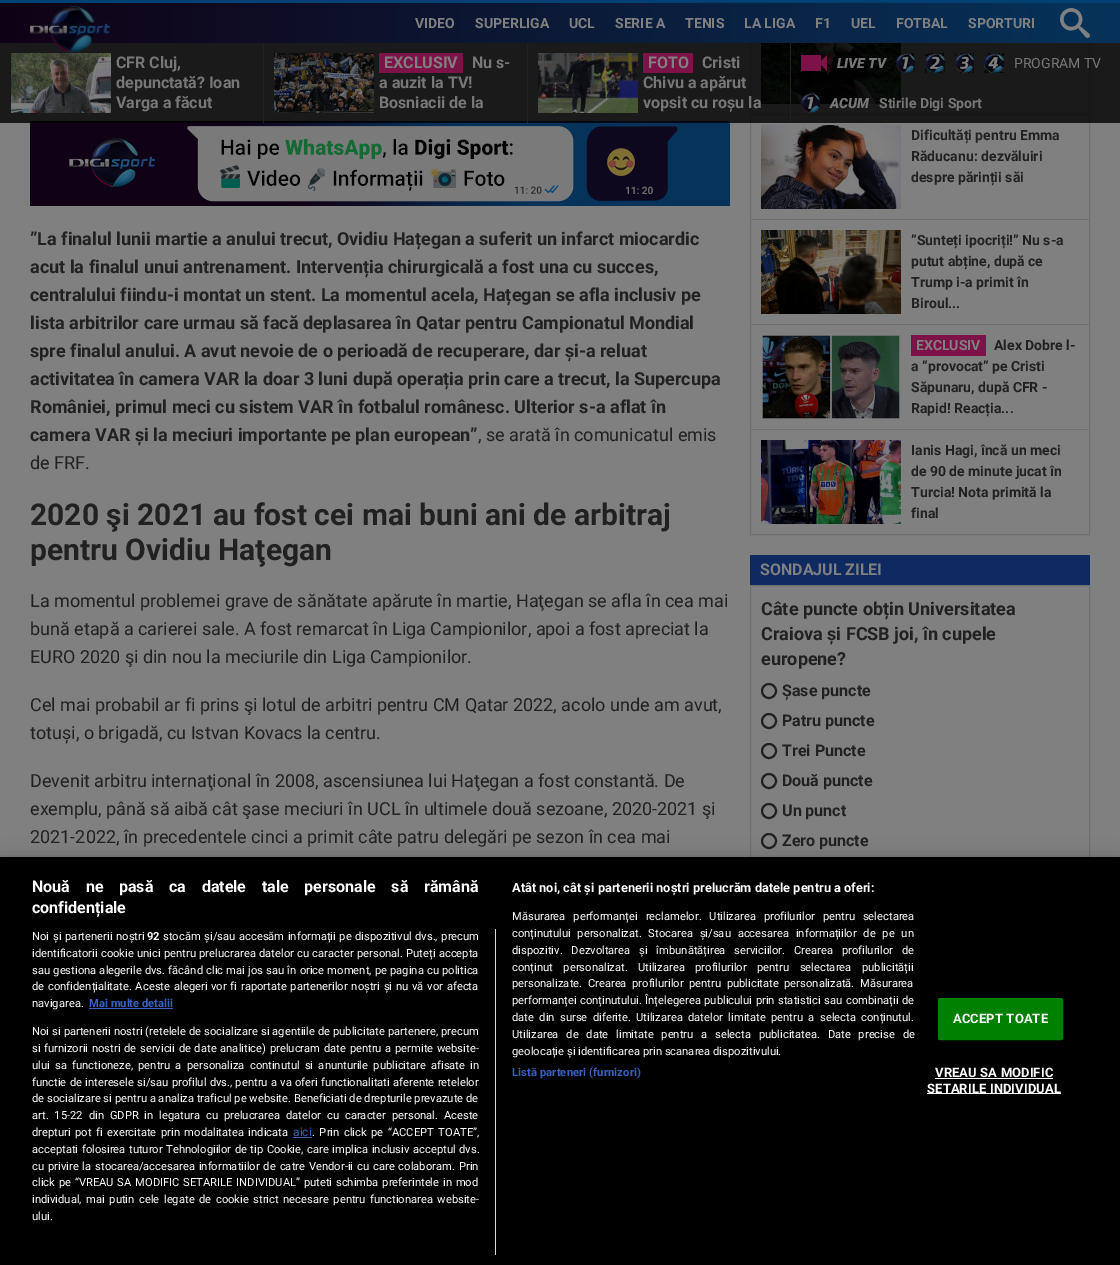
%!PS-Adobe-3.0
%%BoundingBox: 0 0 1120 1265
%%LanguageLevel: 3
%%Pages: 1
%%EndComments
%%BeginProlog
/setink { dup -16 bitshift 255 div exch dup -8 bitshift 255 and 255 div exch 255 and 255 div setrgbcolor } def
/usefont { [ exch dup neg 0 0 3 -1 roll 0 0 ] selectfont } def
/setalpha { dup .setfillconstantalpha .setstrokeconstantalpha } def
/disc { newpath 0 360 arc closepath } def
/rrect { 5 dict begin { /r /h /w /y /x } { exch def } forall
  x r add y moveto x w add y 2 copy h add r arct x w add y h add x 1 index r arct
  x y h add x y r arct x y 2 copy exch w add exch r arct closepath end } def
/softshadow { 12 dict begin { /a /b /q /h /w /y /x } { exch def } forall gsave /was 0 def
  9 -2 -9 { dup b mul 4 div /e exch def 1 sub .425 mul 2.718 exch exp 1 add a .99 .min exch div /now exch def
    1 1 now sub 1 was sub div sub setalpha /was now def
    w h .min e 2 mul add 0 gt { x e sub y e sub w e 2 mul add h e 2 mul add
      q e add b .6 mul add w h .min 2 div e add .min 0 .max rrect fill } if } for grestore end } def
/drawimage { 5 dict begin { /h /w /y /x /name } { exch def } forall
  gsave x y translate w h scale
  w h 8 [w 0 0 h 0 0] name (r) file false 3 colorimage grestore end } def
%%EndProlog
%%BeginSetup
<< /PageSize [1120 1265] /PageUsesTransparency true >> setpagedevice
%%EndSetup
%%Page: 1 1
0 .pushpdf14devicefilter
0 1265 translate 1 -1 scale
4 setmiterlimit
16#808080 setink
0 0 1120 1265 rectfill
16#004175 setink
0 0 1120 3 rectfill
16#6F6F6F setink
750.5 9.5 339 525 rectstroke
gsave 0 3 moveto 1120 3 lineto 1120 43 lineto 0 43 lineto closepath clip newpath
<< /ShadingType 2 /ColorSpace /DeviceRGB /Coords [0 23 1120 23] /Extend [true true] /Function << /FunctionType 2 /Domain [0 1] /C0 [0.063 0.004 0.082] /C1 [0.024 0.2 0.353] /N 1 >> >> shfill grestore
(img11.raw) 30 121 700 85 drawimage
(img12.raw) 761 43 140 61 drawimage
751 114 338 1 rectfill
0.8 setalpha
16#000000 setink
0 43 1120 80 rectfill
1 setalpha
(img1.raw) 30 6 80 46 drawimage
/Roboto-Bold 14 usefont
16#808080 setink
[
    [(VIDEO) 415 28]
    [(SUPERLIGA) 475 28]
    [(UCL) 569 28]
    [(SERIE A) 615 28]
    [(TENIS) 685 28]
    [(LA LIGA) 744 28]
    [(F1) 815 28]
    [(UEL) 851 28]
    [(FOTBAL) 896 28]
    [(SPORTURI) 968 28]
] { aload pop moveto show } forall
(img2.raw) 1060 8 30 30 drawimage
(img3.raw) 11 53 100 60 drawimage
/Roboto-Bold 16 usefont
16#777777 setink
[
    [(CFR Cluj,) 116 68]
    [(depunctată? Ioan) 116 88]
    [(Varga a făcut) 116 108]
] { aload pop moveto show } forall
16#212121 setink
263 43 1 80 rectfill
(img4.raw) 274 53 100 60 drawimage
16#7C1247 setink
379 53 84 20 rectfill
16#808080 setink
384 68 moveto (EXCLUSIV) show
16#777777 setink
[
    [(Nu s-) 472 68]
    [(a auzit la TV!) 379 88]
    [(Bosniacii de la) 379 108]
] { aload pop moveto show } forall
16#212121 setink
527 43 1 80 rectfill
(img5.raw) 538 53 100 60 drawimage
16#7C1247 setink
643 53 50 20 rectfill
16#808080 setink
648 68 moveto (FOTO) show
16#777777 setink
[
    [(Cristi) 702 68]
    [(Chivu a apărut) 643 88]
    [(vopsit cu roșu la) 643 108]
] { aload pop moveto show } forall
16#212121 setink
790 43 1 80 rectfill
16#7C1247 setink
801 55 20 16 rectfill
827 55 moveto 827 71 lineto 819 63 lineto closepath fill
/Roboto-BlackItalic 14 usefont
16#777777 setink
837 68 moveto (LIVE TV) show
(img6.raw) 896 53 19 20 drawimage
(img7.raw) 925 53 20 20 drawimage
(img8.raw) 955 53 19 20 drawimage
(img9.raw) 984 53 20 20 drawimage
/Roboto-Regular 14 usefont
1014 68 moveto (PROGRAM TV) show
(img10.raw) 801 93 19 20 drawimage
/Roboto-BlackItalic 14 usefont
830 108 moveto (ACUM) show
/Roboto-Bold 14 usefont
879 108 moveto (Stirile Digi Sport) show
/Roboto-Bold 18 usefont
16#212121 setink
[
    [(”La finalul lunii martie a anului trecut, Ovidiu Hațegan a suferit un infarct miocardic) 30 245]
    [(acut la finalul unui antrenament. Intervenția chirurgicală a fost una cu succes,) 30 273]
    [(centralului fiindu-i montat un stent. La momentul acela, Hațegan se afla inclusiv pe) 30 301]
    [(lista arbitrilor care urmau să facă deplasarea în Qatar pentru Campionatul Mondial) 30 329]
    [(spre finalul anului. A avut nevoie de o perioadă de recuperare, dar și-a reluat) 30 357]
    [(activitatea în camera VAR la doar 3 luni după operația prin care a trecut, la Supercupa) 30 385]
    [(României, primul meci cu sistem VAR în fotbalul românesc. Ulterior s-a aflat în) 30 413]
    [(camera VAR și la meciuri importante pe plan european”) 30 441]
] { aload pop moveto show } forall
/Roboto-Regular 18 usefont
478 441 moveto (, se arată în comunicatul emis) show
30 469 moveto (de FRF.) show
/Roboto-Bold 30 usefont
30 525 moveto (2020 şi 2021 au fost cei mai buni ani de arbitraj) show
30 560 moveto (pentru Ovidiu Haţegan) show
/Roboto-Regular 18 usefont
[
    [(La momentul problemei grave de sănătate apărute în martie, Haţegan se afla în cea mai) 30 607]
    [(bună etapă a carierei sale. A fost remarcat în Liga Campionilor, apoi a fost apreciat la) 30 635]
    [(EURO 2020 şi din nou la meciurile din Liga Campionilor.) 30 663]
    [(Cel mai probabil ar fi prins şi lotul de arbitri pentru CM Qatar 2022, acolo unde am avut,) 30 711]
    [(totuși, o brigadă, cu Istvan Kovacs la centru.) 30 739]
    [(Devenit arbitru internaţional în 2008, ascensiunea lui Haţegan a fost constantă. De) 30 787]
    [(exemplu, până să aibă cât şase meciuri în UCL în ultimele două sezoane, 2020-2021 şi) 30 815]
    [(2021-2022, în precedentele cinci a primit câte patru delegări pe sezon în cea mai) 30 843]
] { aload pop moveto show } forall
(img13.raw) 761 125 140 84 drawimage
/Roboto-Bold 14 usefont
[
    [(Dificultăți pentru Emma) 911 140]
    [(Răducanu: dezvăluiri) 911 161]
    [(despre părinții săi) 911 182]
] { aload pop moveto show } forall
16#6F6F6F setink
751 219 338 1 rectfill
(img14.raw) 761 230 140 84 drawimage
16#212121 setink
[
    [(”Sunteți ipocriți!” Nu s-a) 911 245]
    [(putut abține, după ce) 911 266]
    [(Trump i-a primit în) 911 287]
    [(Biroul...) 911 308]
] { aload pop moveto show } forall
16#6F6F6F setink
751 324 338 1 rectfill
(img15.raw) 761 335 140 84 drawimage
16#7C1247 setink
911 335 75 21 rectfill
16#808080 setink
916 350 moveto (EXCLUSIV) show
16#212121 setink
[
    [(Alex Dobre l-) 994 350]
    [(a ”provocat” pe Cristi) 911 371]
    [(Săpunaru, după CFR -) 911 392]
    [(Rapid! Reacția...) 911 413]
] { aload pop moveto show } forall
16#6F6F6F setink
751 429 338 1 rectfill
(img16.raw) 761 440 140 84 drawimage
16#212121 setink
[
    [(Ianis Hagi, încă un meci) 911 455]
    [(de 90 de minute jucat în) 911 476]
    [(Turcia! Nota primită la) 911 497]
    [(final) 911 518]
] { aload pop moveto show } forall
16#0F2961 setink
750 555 340 30 rectfill
/Roboto-Bold 16 usefont
16#808080 setink
760 575 moveto (SONDAJUL ZILEI) show
16#6F6F6F setink
750.5 585.5 339 306 rectstroke
/Roboto-Bold 18 usefont
16#212121 setink
[
    [(Câte puncte obțin Universitatea) 761 615]
    [(Craiova și FCSB joi, în cupele) 761 640]
    [(europene?) 761 665]
] { aload pop moveto show } forall
2 setlinewidth
769 691 7 disc stroke
/Roboto-Bold 16 usefont
782 696 moveto (Șase puncte) show
769 721 7 disc stroke
782 726 moveto (Patru puncte) show
769 751 7 disc stroke
782 756 moveto (Trei Puncte) show
769 781 7 disc stroke
782 786 moveto (Două puncte) show
769 811 7 disc stroke
782 816 moveto (Un punct) show
769 841 7 disc stroke
782 846 moveto (Zero puncte) show
16#000000 setink
0 857 1120 408 0 9 0.2 softshadow
0 857 1120 408 rectfill
16#FFFFFF setink
32 892 moveto 11.75 0 32 (Nouă ne pasă ca datele tale personale să rămână) widthshow
32 913 moveto (confidențiale) show
/Roboto-Bold 12.8 usefont
512 892 moveto (Atât noi, cât și partenerii noștri prelucrăm datele pentru a oferi:) show
/Roboto-Regular 11.2 usefont
512 920 moveto 5 0 32 (Măsurarea performanței reclamelor. Utilizarea profilurilor pentru selectarea) widthshow
512 937 moveto 4 0 32 (conținutului personalizat. Stocarea și/sau accesarea informațiilor de pe un) widthshow
512 954 moveto 6 0 32 (dispozitiv. Dezvoltarea și îmbunătățirea serviciilor. Crearea profilurilor de) widthshow
512 971 moveto 7.75 0 32 (conținut personalizat. Utilizarea profilurilor pentru selectarea publicității) widthshow
512 987 moveto 2.75 0 32 (personalizate. Crearea profilurilor pentru publicitate personalizată. Măsurarea) widthshow
512 1004 moveto 0.75 0 32 (performanței conținutului. Înțelegerea publicului prin statistici sau combinații de) widthshow
512 1021 moveto 2.6 0 32 (date din surse diferite. Utilizarea datelor limitate pentru a selecta conținutul.) widthshow
512 1038 moveto 5 0 32 (Utilizarea de date limitate pentru a selecta publicitatea. Date precise de) widthshow
512 1055 moveto (geolocație și identificarea prin scanarea dispozitivului.) show
/Roboto-Bold 11.2 usefont
16#3860BE setink
512 1076 moveto 0.1 0 (Listă parteneri \(furnizori\)) ashow
16#D8D8D8 setink
495 929 1 326 rectfill
/Roboto-Regular 11.2 usefont
16#FFFFFF setink
32 940 moveto 1 0 32 (Noi și partenerii noștri) widthshow
/Roboto-Bold 11.2 usefont
147 940 moveto (92) show
/Roboto-Regular 11.2 usefont
163 940 moveto 0.75 0 32 (stocăm și/sau accesăm informații pe dispozitivul dvs., precum) widthshow
32 957 moveto 0.5 0 32 (identificatorii cookie unici pentru prelucrarea datelor cu caracter personal. Puteți accepta) widthshow
32 974 moveto 0.4 0 32 (sau gestiona alegerile dvs. făcând clic mai jos sau în orice moment, pe pagina cu politica) widthshow
32 990 moveto 1 0 32 (de confidențialitate. Aceste alegeri vor fi raportate partenerilor noștri și nu vă vor afecta) widthshow
32 1007 moveto (navigarea.) show
/Roboto-Bold 11.2 usefont
16#3860BE setink
89 1007 moveto (Mai multe detalii) show
89 1008 84 1 rectfill
/Roboto-Regular 11.2 usefont
16#FFFFFF setink
32 1035 moveto 0.25 0 32 (Noi si partenerii nostri \(retelele de socializare si agentiile de publicitate partenere, precum) widthshow
32 1052 moveto 0.9 0 32 (si furnizorii nostri de servicii de date analitice\) prelucram date pentru a permite website-) widthshow
32 1069 moveto 2.5 0 32 (ului sa functioneze, pentru a personaliza continutul si anunturile publicitare afisate in) widthshow
32 1086 moveto 0.5 0 32 (functie de interesele si/sau profilul dvs., pentru a va oferi functionalitati aferente retelelor) widthshow
32 1102 moveto (de socializare si pentru a analiza traficul pe website. Beneficiati de drepturile prevazute de) show
32 1119 moveto 3.1 0 32 (art. 15-22 din GDPR in legatura cu prelucrarea datelor cu caracter personal. Aceste) widthshow
32 1136 moveto 1.75 0 32 (drepturi pot fi exercitate prin modalitatea indicata) widthshow
/Roboto-Regular 12 usefont
16#3860BE setink
293 1136 moveto (aici) show
293 1137 19 1 rectfill
/Roboto-Regular 11.2 usefont
16#FFFFFF setink
312 1136 moveto 1.75 0 32 (. Prin click pe “ACCEPT TOATE”,) widthshow
32 1153 moveto 0.75 0 32 (acceptati folosirea tuturor Tehnologiilor de tip Cookie, care implica inclusiv acceptul dvs.) widthshow
32 1170 moveto 1.1 0 32 (cu privire la stocarea/accesarea informatiilor de catre Vendor-ii cu care colaboram. Prin) widthshow
32 1186 moveto 1 0 32 (click pe “VREAU SA MODIFIC SETARILE INDIVIDUAL” puteti schimba preferintele in mod) widthshow
32 1203 moveto 1.75 0 32 (individual, mai putin cele legate de cookie strict necesare pentru functionarea website-) widthshow
32 1220 moveto (ului.) show
16#008000 setink
938.5 998.5 124 41 1.5 rrect gsave fill grestore
1 setlinewidth
stroke
/Roboto-Bold 13 usefont
16#FFFFFF setink
953 1023 moveto 0.1 0 (ACCEPT TOATE) ashow
935 1077 moveto 0.1 0 (VREAU SA MODIFIC) ashow
935 1078 118 1 rectfill
927 1093 134 1 rectfill
927 1093 moveto 0.1 0 (SETARILE INDIVIDUAL) ashow
.poppdf14devicefilter showpage
%%EOF
